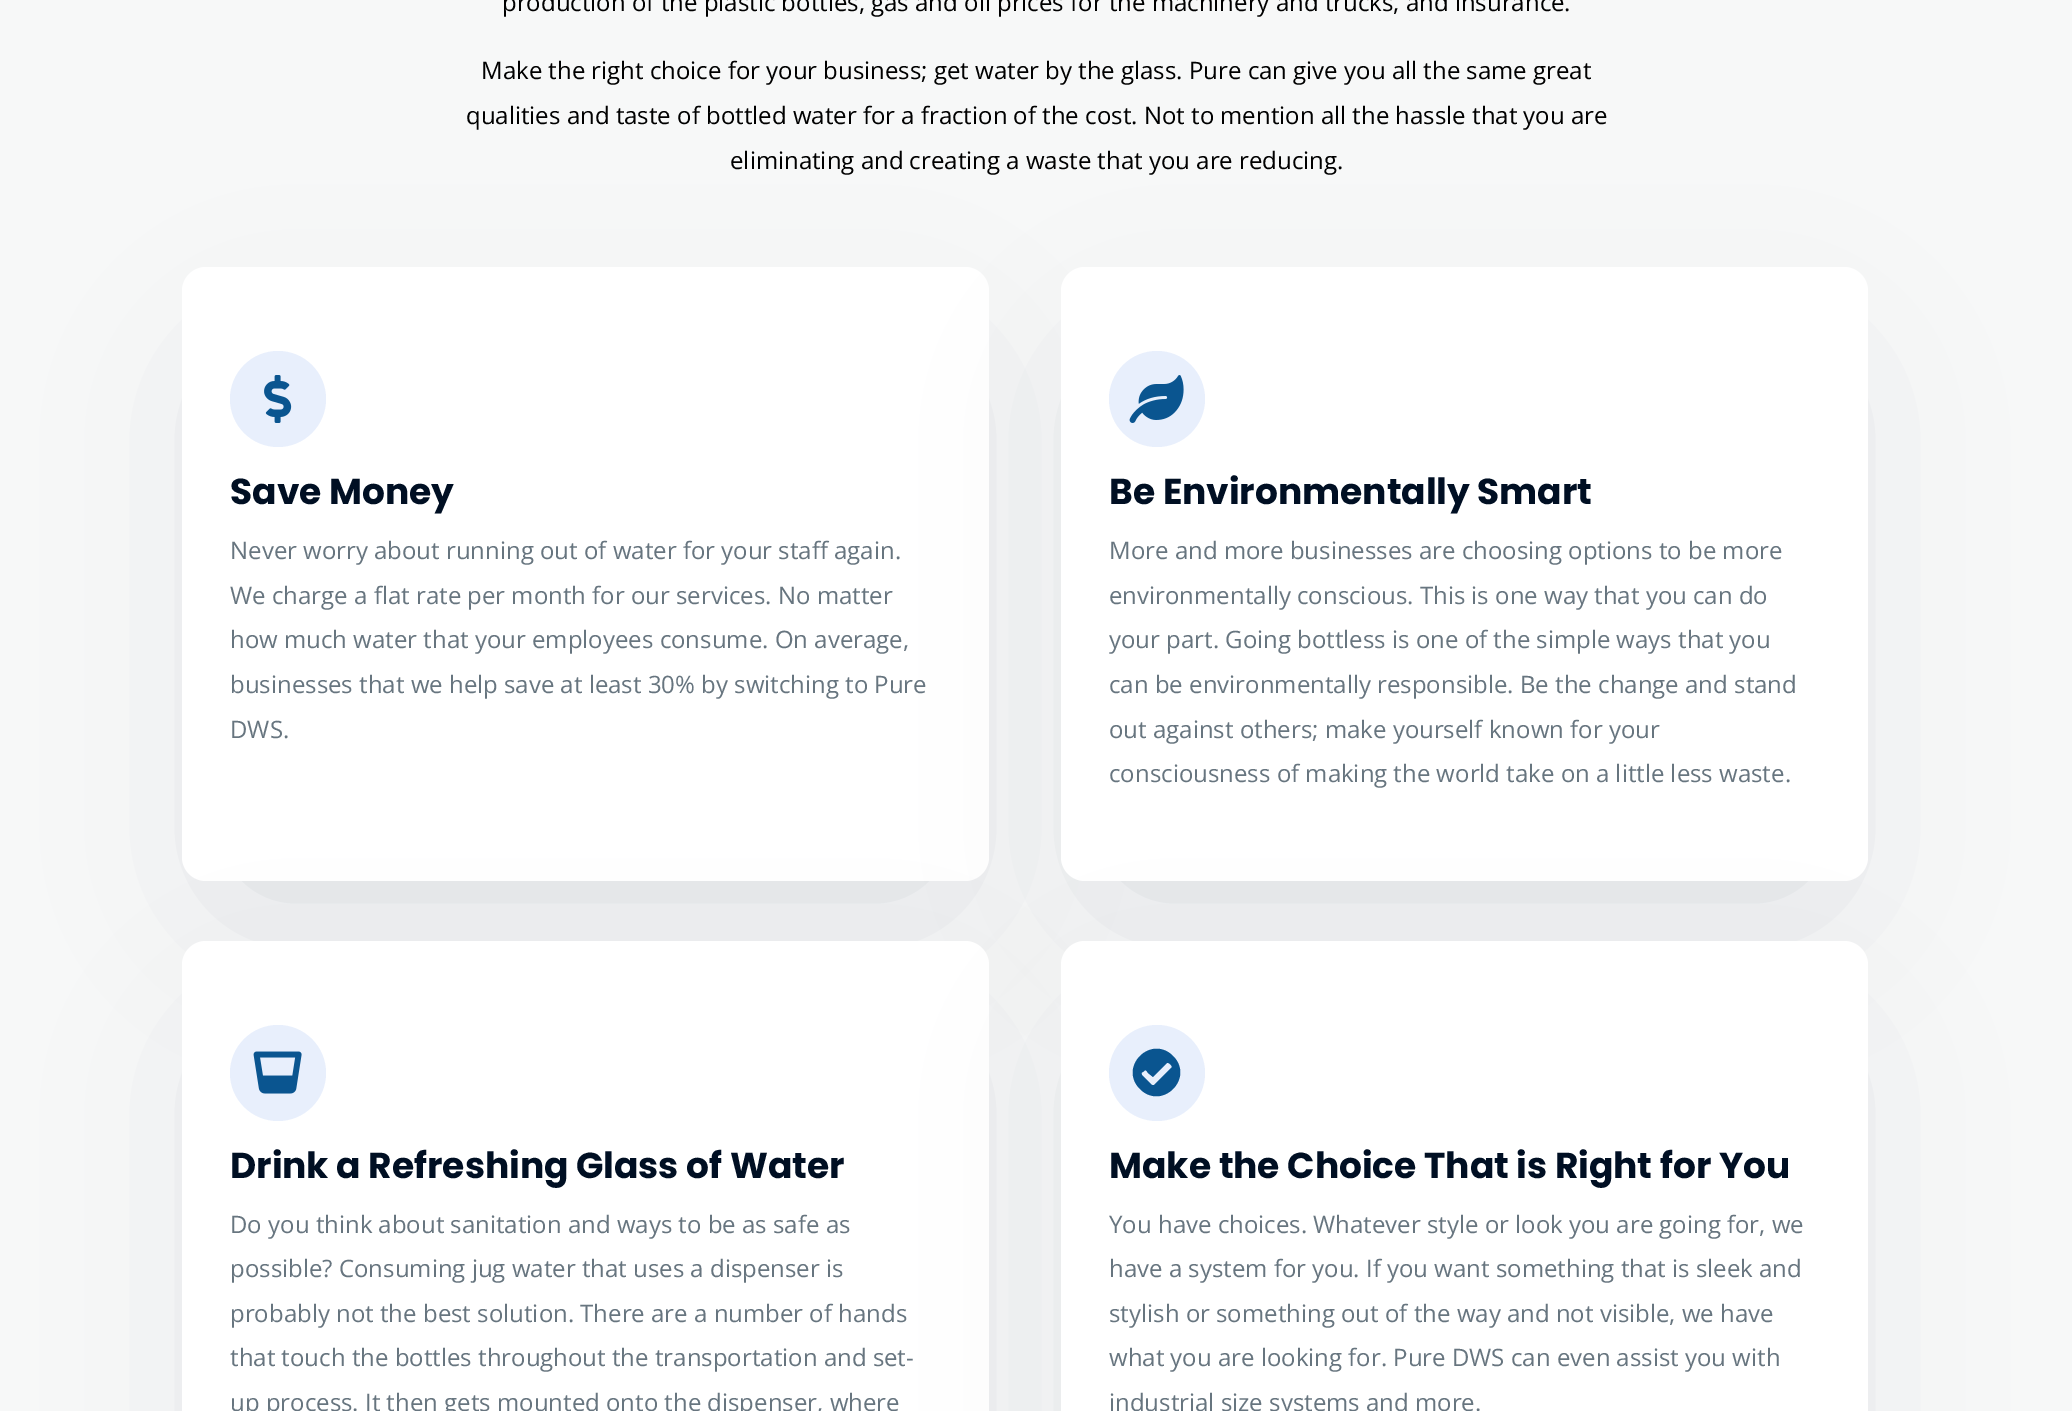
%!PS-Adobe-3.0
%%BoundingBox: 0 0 2072 1411
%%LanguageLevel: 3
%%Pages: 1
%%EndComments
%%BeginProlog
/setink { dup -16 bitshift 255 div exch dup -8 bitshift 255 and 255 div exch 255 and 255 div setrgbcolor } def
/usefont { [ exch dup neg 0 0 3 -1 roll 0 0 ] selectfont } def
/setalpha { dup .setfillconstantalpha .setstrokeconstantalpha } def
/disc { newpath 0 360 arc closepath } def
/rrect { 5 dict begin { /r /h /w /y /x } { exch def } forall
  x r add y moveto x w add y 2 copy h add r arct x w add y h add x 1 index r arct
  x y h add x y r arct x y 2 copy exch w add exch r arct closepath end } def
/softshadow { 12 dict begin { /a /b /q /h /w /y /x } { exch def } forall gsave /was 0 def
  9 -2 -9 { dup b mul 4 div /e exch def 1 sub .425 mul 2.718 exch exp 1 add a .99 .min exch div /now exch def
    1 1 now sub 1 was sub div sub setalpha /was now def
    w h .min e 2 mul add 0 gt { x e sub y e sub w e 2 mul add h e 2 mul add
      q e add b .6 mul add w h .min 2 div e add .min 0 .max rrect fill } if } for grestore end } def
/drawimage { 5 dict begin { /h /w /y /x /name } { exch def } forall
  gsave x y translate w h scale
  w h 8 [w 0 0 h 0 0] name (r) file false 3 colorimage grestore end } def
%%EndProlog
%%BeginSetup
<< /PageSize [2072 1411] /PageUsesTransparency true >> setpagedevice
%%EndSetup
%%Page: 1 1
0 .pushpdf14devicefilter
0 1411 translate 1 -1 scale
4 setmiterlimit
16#F7F8F8 setink
0 0 2072 1411 rectfill
/OpenSans-Regular 24 usefont
16#000000 setink
[
    [(production of the plastic bottles, gas and oil prices for the machinery and trucks, and insurance.) 502 11]
    [(Make the right choice for your business; get water by the glass. Pure can give you all the same great) 481 79]
    [(qualities and taste of bottled water for a fraction of the cost. Not to mention all the hassle that you are) 466 124]
    [(eliminating and creating a waste that you are reducing.) 730 169]
] { aload pop moveto show } forall
16#5D7280 setink
242 387 687 494 0 90 0.24 softshadow
16#FFFFFF setink
182 267 807 614 24 rrect fill
16#E8EFFC setink
278 399 48 disc fill
(img1.raw) 264 375 28 48 drawimage
/Poppins-Bold 36 usefont
16#000F23 setink
230 504 moveto (Save Money) show
/OpenSans-Regular 24 usefont
16#67757F setink
[
    [(Never worry about running out of water for your staff again.) 230 559]
    [(We charge a flat rate per month for our services. No matter) 230 604]
    [(how much water that your employees consume. On average,) 230 648]
    [(businesses that we help save at least 30% by switching to Pure) 230 693]
    [(DWS.) 230 738]
] { aload pop moveto show } forall
16#5D7280 setink
1121 387 687 494 0 90 0.24 softshadow
16#FFFFFF setink
1061 267 807 614 24 rrect fill
16#E8EFFC setink
1157 399 48 disc fill
(img2.raw) 1129 375 55 48 drawimage
/Poppins-Bold 36 usefont
16#000F23 setink
1109 504 moveto (Be Environmentally Smart) show
/OpenSans-Regular 24 usefont
16#67757F setink
[
    [(More and more businesses are choosing options to be more) 1109 559]
    [(environmentally conscious. This is one way that you can do) 1109 604]
    [(your part. Going bottless is one of the simple ways that you) 1109 648]
    [(can be environmentally responsible. Be the change and stand) 1109 693]
    [(out against others; make yourself known for your) 1109 738]
    [(consciousness of making the world take on a little less waste.) 1109 782]
] { aload pop moveto show } forall
16#5D7280 setink
242 1061 687 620 0 90 0.24 softshadow
16#FFFFFF setink
182 941 807 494 24 rrect fill
16#E8EFFC setink
278 1073 48 disc fill
(img3.raw) 253 1051 49 43 drawimage
/Poppins-Bold 36 usefont
16#000F23 setink
230 1178 moveto (Drink a Refreshing Glass of Water) show
/OpenSans-Regular 24 usefont
16#67757F setink
[
    [(Do you think about sanitation and ways to be as safe as) 230 1233]
    [(possible? Consuming jug water that uses a dispenser is) 230 1277]
    [(probably not the best solution. There are a number of hands) 230 1322]
    [(that touch the bottles throughout the transportation and set-) 230 1366]
    [(up process. It then gets mounted onto the dispenser, where) 230 1411]
] { aload pop moveto show } forall
16#5D7280 setink
1121 1061 687 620 0 90 0.24 softshadow
16#FFFFFF setink
1061 941 807 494 24 rrect fill
16#E8EFFC setink
1157 1073 48 disc fill
16#0A5590 setink
1173 1056 moveto 1195 1078 1162 1111 1140 1089 curveto 1118 1067 1151 1034 1173 1056 curveto closepath 1154 1085 moveto 1172 1067 lineto 1172 1066 1169 1062 1167 1063 curveto 1153 1077 lineto 1148 1073 lineto 1146 1070 1146 1069 1143 1072 curveto 1142 1072 1141 1073 1142 1075 curveto 1150 1083 lineto 1151 1084 1152 1086 1154 1085 curveto closepath fill
/Poppins-Bold 36 usefont
16#000F23 setink
1109 1178 moveto (Make the Choice That is Right for You) show
/OpenSans-Regular 24 usefont
16#67757F setink
[
    [(You have choices. Whatever style or look you are going for, we) 1109 1233]
    [(have a system for you. If you want something that is sleek and) 1109 1277]
    [(stylish or something out of the way and not visible, we have) 1109 1322]
    [(what you are looking for. Pure DWS can even assist you with) 1109 1366]
    [(industrial size systems and more.) 1109 1411]
] { aload pop moveto show } forall
.poppdf14devicefilter showpage
%%EOF
